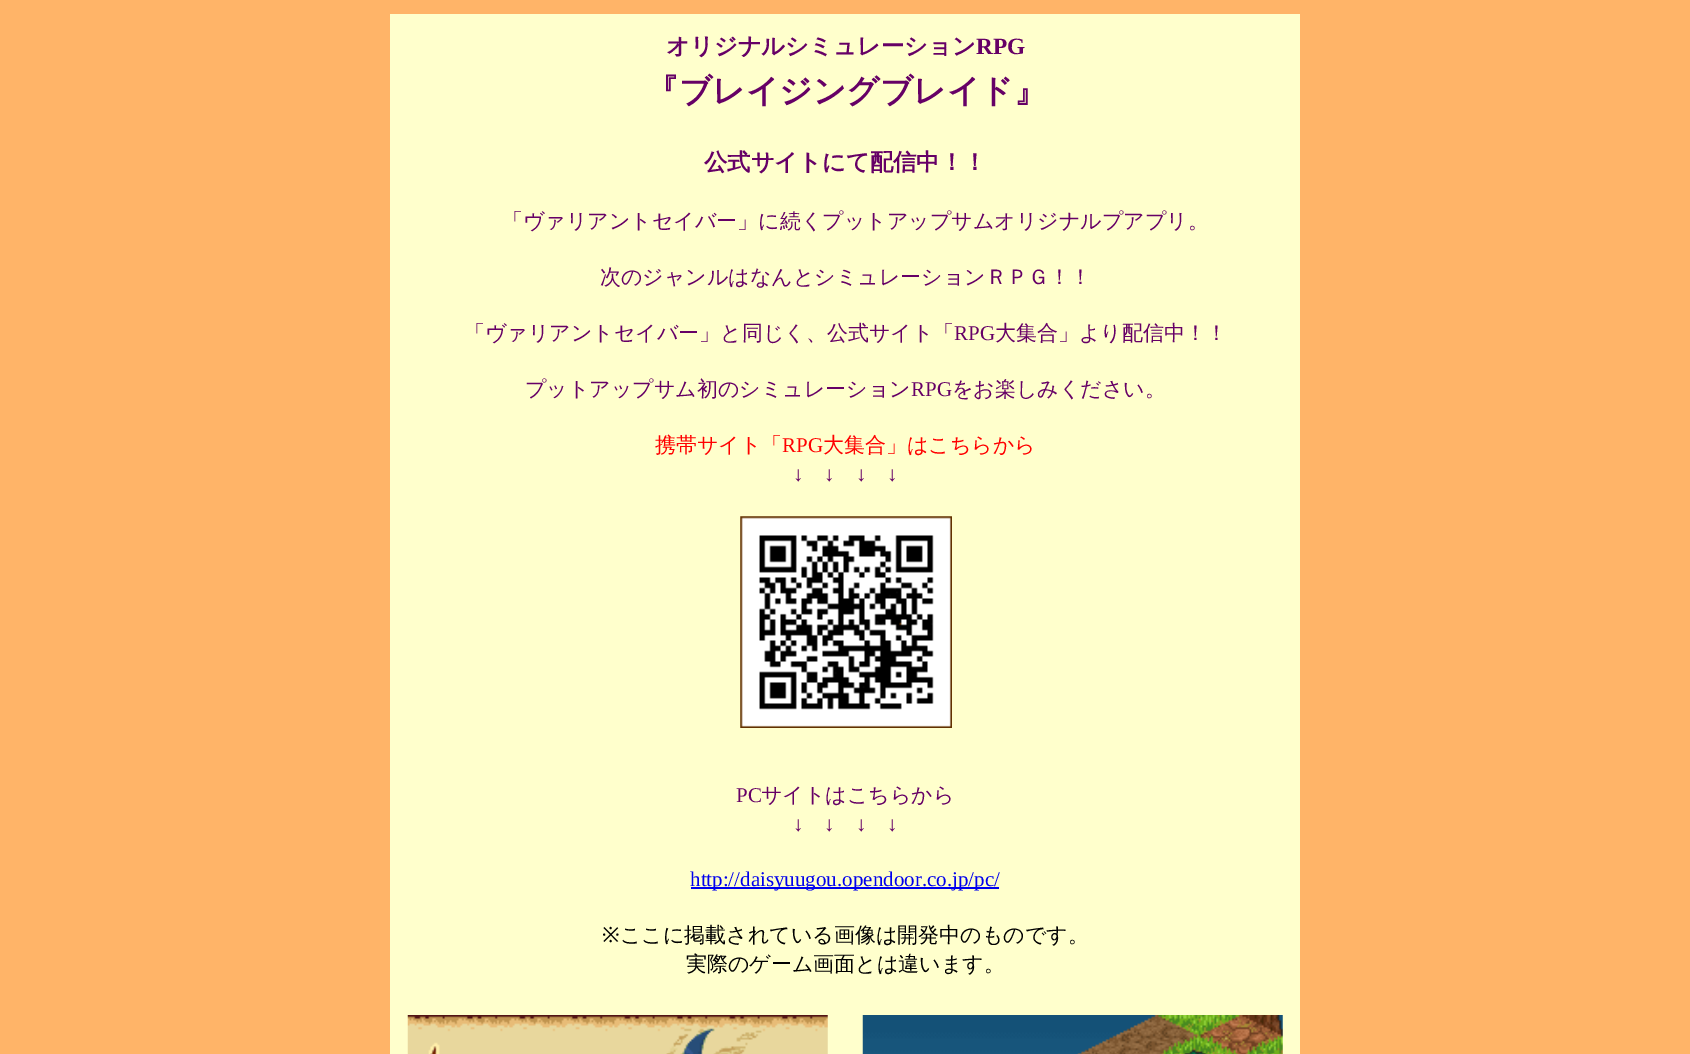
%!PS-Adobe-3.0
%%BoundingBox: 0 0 1690 1054
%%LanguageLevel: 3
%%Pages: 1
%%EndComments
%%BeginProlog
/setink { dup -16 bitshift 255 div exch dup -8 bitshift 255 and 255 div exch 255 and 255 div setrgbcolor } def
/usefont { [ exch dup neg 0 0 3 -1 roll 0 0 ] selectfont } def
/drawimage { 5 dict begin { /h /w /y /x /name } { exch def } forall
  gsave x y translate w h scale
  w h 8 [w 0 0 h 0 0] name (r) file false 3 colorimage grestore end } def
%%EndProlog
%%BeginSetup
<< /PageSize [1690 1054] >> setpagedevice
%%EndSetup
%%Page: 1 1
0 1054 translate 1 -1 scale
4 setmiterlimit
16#FFB468 setink
0 0 1690 1054 rectfill
16#FFFFCC setink
390 14 910 1040 rectfill
/WenQuanYiZenHei-Bold 23.3 usefont
16#660066 setink
666 54 moveto (オリジナルシミュレーション) show
/LiberationSerif-Bold 23.3 usefont
976 54 moveto (RPG) show
/WenQuanYiZenHei-Bold 32.75 usefont
646 102 moveto (『ブレイジングブレイド』) show
/WenQuanYiZenHei-Bold 23.3 usefont
704 170 moveto (公式サイトにて配信中！！) show
/WenQuanYiZenHei-Medium 21 usefont
[
    [(「ヴァリアントセイバー」に続くプットアップサムオリジナルプアプリ。) 502 228]
    [(次のジャンルはなんとシミュレーションＲＰＧ！！) 600 284]
    [(「ヴァリアントセイバー」と同じく、公式サイト「) 464 340]
] { aload pop moveto show } forall
/LiberationSerif-Regular 21 usefont
954 340 moveto (RPG) show
/WenQuanYiZenHei-Medium 21 usefont
995 340 moveto (大集合」より配信中！！) show
525 396 moveto (プットアップサム初のシミュレーション) show
/LiberationSerif-Regular 21 usefont
911 396 moveto (RPG) show
/WenQuanYiZenHei-Medium 21 usefont
952 396 moveto (をお楽しみください。) show
16#FF0000 setink
655 452 moveto (携帯サイト「) show
/LiberationSerif-Regular 21 usefont
782 452 moveto (RPG) show
/WenQuanYiZenHei-Medium 21 usefont
823 452 moveto (大集合」はこちらから) show
/LiberationSerif-Regular 21 usefont
16#660066 setink
[
    [(↓) 793 481]
    [(↓) 824 481]
    [(↓) 856 481]
    [(↓) 887 481]
] { aload pop moveto show } forall
(img1.raw) 740 516 212 212 drawimage
736 802 moveto (PC) show
/WenQuanYiZenHei-Medium 21 usefont
761 802 moveto (サイトはこちらから) show
/LiberationSerif-Regular 21 usefont
[
    [(↓) 793 831]
    [(↓) 824 831]
    [(↓) 856 831]
    [(↓) 887 831]
] { aload pop moveto show } forall
16#0000EE setink
691 887 308 2 rectfill
690 886 moveto (http://daisyuugou.opendoor.co.jp/pc/) show
/NotoSans-Regular 21 usefont
16#000000 setink
602 942 moveto (※) show
/WenQuanYiZenHei-Medium 21 usefont
620 942 moveto (ここに掲載されている画像は開発中のものです。) show
686 971 moveto (実際のゲーム画面とは違います。) show
(img2.raw) 407 1015 421 39 drawimage
(img3.raw) 862 1015 421 39 drawimage
showpage
%%EOF
